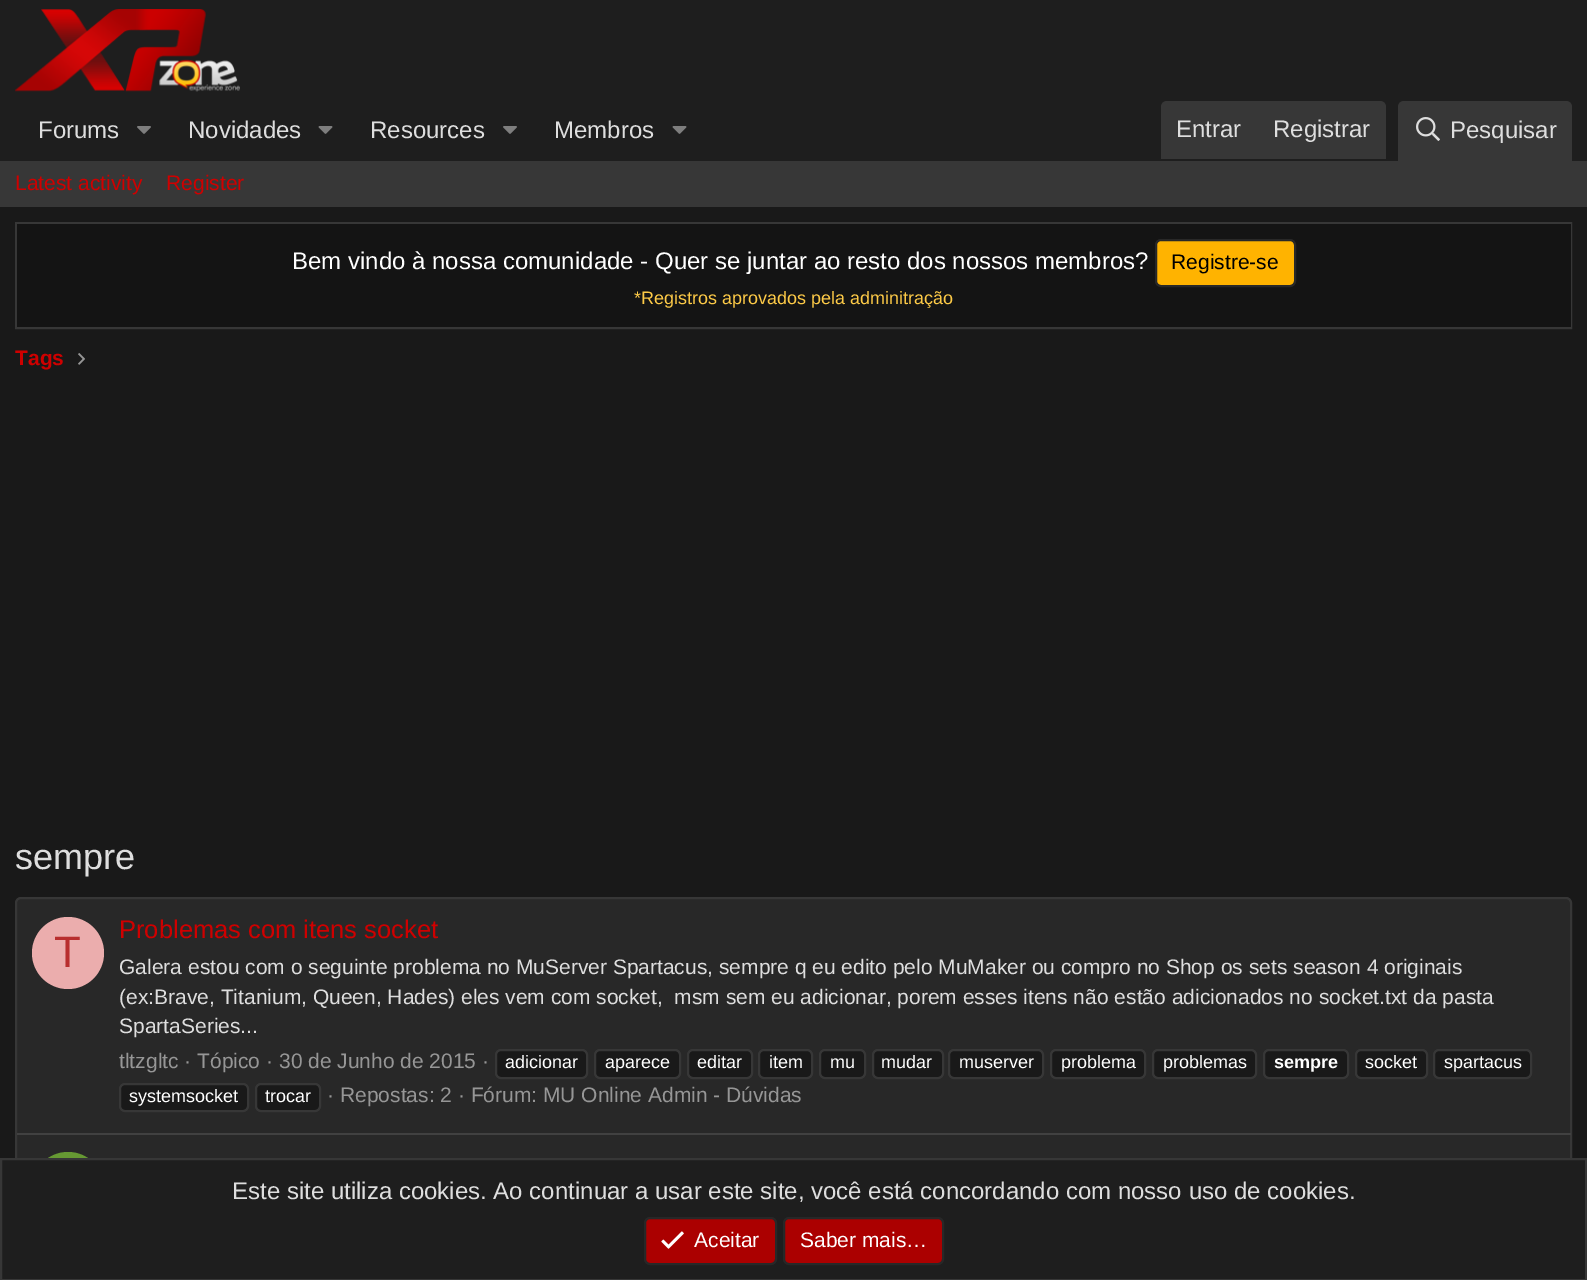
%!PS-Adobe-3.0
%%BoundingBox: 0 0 1587 1280
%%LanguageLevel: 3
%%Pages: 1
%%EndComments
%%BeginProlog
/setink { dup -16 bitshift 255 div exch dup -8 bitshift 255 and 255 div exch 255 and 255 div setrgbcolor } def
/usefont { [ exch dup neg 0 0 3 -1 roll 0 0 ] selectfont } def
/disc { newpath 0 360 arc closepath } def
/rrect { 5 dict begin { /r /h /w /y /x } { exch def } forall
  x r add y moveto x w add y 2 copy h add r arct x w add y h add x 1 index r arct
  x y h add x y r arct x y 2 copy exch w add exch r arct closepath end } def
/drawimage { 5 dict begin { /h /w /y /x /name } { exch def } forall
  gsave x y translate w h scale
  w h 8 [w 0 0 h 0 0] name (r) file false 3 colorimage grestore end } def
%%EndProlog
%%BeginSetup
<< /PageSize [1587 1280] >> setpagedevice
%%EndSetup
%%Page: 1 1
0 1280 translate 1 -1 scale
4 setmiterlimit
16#191919 setink
0 0 1587 1280 rectfill
16#1E1E1E setink
0 0 1587 161 rectfill
(img1.raw) 15 9 225 83 drawimage
/LiberationSans-Regular 24 usefont
16#DEDEDE setink
38 138 moveto (Forums) show
(img2.raw) 137 126 14 8 drawimage
188 138 moveto (Novidades) show
(img3.raw) 318 126 15 8 drawimage
370 138 moveto (Resources) show
(img2.raw) 503 126 14 8 drawimage
554 138 moveto (Membros) show
(img3.raw) 672 126 15 8 drawimage
16#373737 setink
1167 101 moveto 1380 101 lineto 1383.5 101 1386 103.5 1386 107 curveto 1386 159 lineto 1161 159 lineto 1161 107 lineto 1161 103.5 1163.5 101 1167 101 curveto closepath fill
16#DEDEDE setink
1176 137 moveto (Entrar) show
1273 137 moveto (Registrar) show
16#373737 setink
1404 101 moveto 1566 101 lineto 1569.5 101 1572 103.5 1572 107 curveto 1572 161 lineto 1398 161 lineto 1398 107 lineto 1398 103.5 1400.5 101 1404 101 curveto closepath fill
(img4.raw) 1416 117 24 24 drawimage
16#DEDEDE setink
1450 138 moveto (Pesquisar) show
16#373737 setink
0 161 1587 46 rectfill
/LiberationSans-Regular 21 usefont
16#CF0000 setink
15 190 moveto (Latest activity) show
166 190 moveto (Register) show
16#373737 setink
2 setlinewidth
16 223 1555 105 rectstroke
16#141414 setink
17 224 1554 103 rectfill
/LiberationSans-Regular 24 usefont
16#FFFFFF setink
292 269 moveto (Bem vindo à nossa comunidade - Quer se juntar ao resto dos nossos membros?) show
16#FFB300 setink
1156 240 139 46 5 rrect gsave fill grestore
16#282828 setink
stroke
/LiberationSans-Regular 21 usefont
16#000000 setink
1171 269 moveto (Registre-se) show
/LiberationSans-Regular 18 usefont
16#FDCA47 setink
634 304 moveto (*Registros aprovados pela adminitração) show
/LiberationSans-Bold 21 usefont
16#CF0000 setink
15 365 moveto (Tags) show
(img5.raw) 78 353 7 12 drawimage
/LiberationSans-Regular 36 usefont
16#DEDEDE setink
15 869 moveto (sempre) show
16#282828 setink
16 898 1555 379 5 rrect gsave fill grestore
16#373737 setink
stroke
16#EBADAD setink
68 953 36 disc fill
/LiberationSans-Regular 44 usefont
16#B82E2E setink
54 967 moveto (T) show
/LiberationSans-Regular 25.5 usefont
16#CF0000 setink
119 938 moveto (Problemas com itens socket) show
/LiberationSans-Regular 21 usefont
16#DEDEDE setink
[
    [(Galera estou com o seguinte problema no MuServer Spartacus, sempre q eu edito pelo MuMaker ou compro no Shop os sets season 4 originais) 119 974]
    [(\(ex:Brave, Titanium, Queen, Hades\) eles vem com socket,  msm sem eu adicionar, porem esses itens não estão adicionados no socket.txt da pasta) 119 1004]
    [(SpartaSeries...) 119 1033]
] { aload pop moveto show } forall
16#969696 setink
119 1068 moveto (tltzgltc · Tópico · 30 de Junho de 2015 ·) show
16#191919 setink
496 1050 91 28 5 rrect gsave fill grestore
16#373737 setink
stroke
/LiberationSans-Regular 18 usefont
16#FFFFFF setink
505 1068 moveto (adicionar) show
16#191919 setink
595 1050 85 28 5 rrect gsave fill grestore
16#373737 setink
stroke
16#FFFFFF setink
605 1068 moveto (aparece) show
16#191919 setink
688 1050 64 28 5 rrect gsave fill grestore
16#373737 setink
stroke
16#FFFFFF setink
697 1068 moveto (editar) show
16#191919 setink
759 1050 53 28 5 rrect gsave fill grestore
16#373737 setink
stroke
16#FFFFFF setink
769 1068 moveto (item) show
16#191919 setink
820 1050 45 28 5 rrect gsave fill grestore
16#373737 setink
stroke
16#FFFFFF setink
830 1068 moveto (mu) show
16#191919 setink
873 1050 70 28 5 rrect gsave fill grestore
16#373737 setink
stroke
16#FFFFFF setink
881 1068 moveto (mudar) show
16#191919 setink
949 1050 94 28 5 rrect gsave fill grestore
16#373737 setink
stroke
16#FFFFFF setink
959 1068 moveto (muserver) show
16#191919 setink
1051 1050 94 28 5 rrect gsave fill grestore
16#373737 setink
stroke
16#FFFFFF setink
1061 1068 moveto (problema) show
16#191919 setink
1153 1050 103 28 5 rrect gsave fill grestore
16#373737 setink
stroke
16#FFFFFF setink
1163 1068 moveto (problemas) show
16#191919 setink
1264 1050 84 28 5 rrect gsave fill grestore
16#373737 setink
stroke
/LiberationSans-Bold 18 usefont
16#FFFFFF setink
1274 1068 moveto (sempre) show
16#191919 setink
1356 1050 71 28 5 rrect gsave fill grestore
16#373737 setink
stroke
/LiberationSans-Regular 18 usefont
16#FFFFFF setink
1365 1068 moveto (socket) show
16#191919 setink
1434 1050 97 28 5 rrect gsave fill grestore
16#373737 setink
stroke
16#FFFFFF setink
1444 1068 moveto (spartacus) show
16#191919 setink
120 1084 128 27 5 rrect gsave fill grestore
16#373737 setink
stroke
16#FFFFFF setink
129 1102 moveto (systemsocket) show
16#191919 setink
256 1084 64 27 5 rrect gsave fill grestore
16#373737 setink
stroke
16#FFFFFF setink
265 1102 moveto (trocar) show
/LiberationSans-Regular 21 usefont
16#969696 setink
327 1102 moveto (· Repostas: 2 · Fórum: MU Online Admin - Dúvidas) show
16#414141 setink
17 1133 1554 2 rectfill
16#669933 setink
68 1188 36 disc fill
16#1E1E1E setink
1 1159 moveto 1586 1159 lineto 1586 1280 lineto 1 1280 lineto closepath gsave fill grestore
16#373737 setink
stroke
/LiberationSans-Regular 24 usefont
16#DEDEDE setink
232 1199 moveto (Este site utiliza cookies. Ao continuar a usar este site, você está concordando com nosso uso de cookies.) show
16#AB0000 setink
645 1218 131 46 5 rrect gsave fill grestore
16#282828 setink
stroke
(img6.raw) 661 1231 23 18 drawimage
/LiberationSans-Regular 21 usefont
16#FFFFFF setink
694 1247 moveto (Aceitar) show
16#AB0000 setink
784 1218 159 46 5 rrect gsave fill grestore
16#282828 setink
stroke
16#FFFFFF setink
800 1247 moveto (Saber mais…) show
showpage
%%EOF
